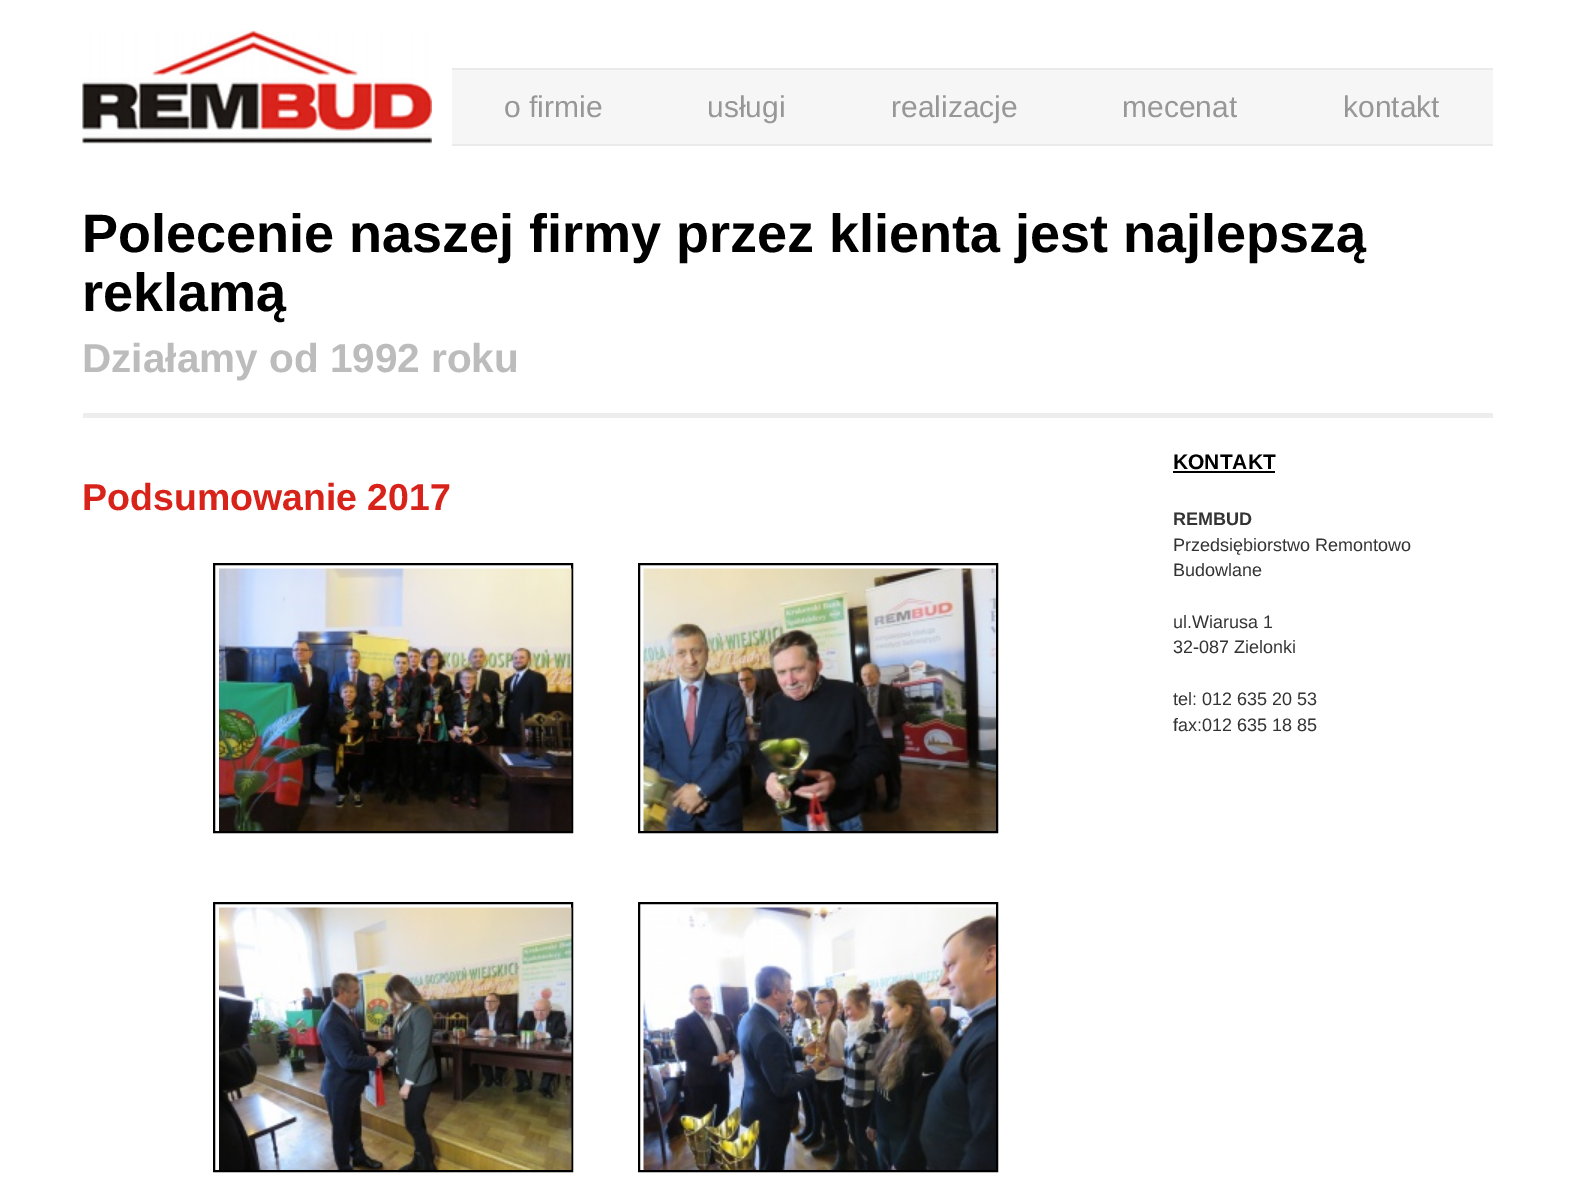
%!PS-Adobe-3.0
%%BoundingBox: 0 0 1573 1192
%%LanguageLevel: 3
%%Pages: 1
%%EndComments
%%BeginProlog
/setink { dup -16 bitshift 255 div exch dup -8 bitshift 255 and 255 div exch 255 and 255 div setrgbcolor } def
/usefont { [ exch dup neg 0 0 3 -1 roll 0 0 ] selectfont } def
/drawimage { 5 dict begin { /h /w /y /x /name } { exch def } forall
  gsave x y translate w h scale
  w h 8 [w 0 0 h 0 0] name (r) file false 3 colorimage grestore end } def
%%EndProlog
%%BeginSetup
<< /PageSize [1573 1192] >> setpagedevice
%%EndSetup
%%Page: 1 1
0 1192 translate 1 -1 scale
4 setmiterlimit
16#FFFFFF setink
0 0 1573 1192 rectfill
(img1.raw) 82 30 350 114 drawimage
[
    [452 70 1041 74 16#F6F6F6]
    [452 68 1041 2 16#EAEAEA]
    [452 144 1041 2 16#EAEAEA]
] { aload pop setink rectfill } forall
/LiberationSans-Regular 30 usefont
16#979797 setink
[
    [(o firmie) 504 117]
    [(usługi) 707 117]
    [(realizacje) 891 117]
    [(mecenat) 1122 117]
    [(kontakt) 1343 117]
] { aload pop moveto show } forall
/LiberationSans-Bold 54 usefont
16#000000 setink
82 252 moveto (Polecenie naszej firmy przez klienta jest najlepszą) show
82 311 moveto (reklamą) show
/LiberationSans-Bold 40.5 usefont
16#BCBCBC setink
82 372 moveto (Działamy od 1992 roku) show
16#EDEDED setink
83 413 1410 5 rectfill
/LiberationSans-Bold 37.5 usefont
16#D8231B setink
82 510 moveto (Podsumowanie 2017) show
16#000000 setink
2 setlinewidth
214 564 358 268 rectstroke
(img2.raw) 219 568 353 263 drawimage
639 564 358 268 rectstroke
(img3.raw) 643 568 353 263 drawimage
214 903 358 268 rectstroke
(img4.raw) 219 907 353 263 drawimage
639 903 358 268 rectstroke
(img5.raw) 643 907 353 263 drawimage
/LiberationSans-Bold 21 usefont
1173 469 moveto (KONTAKT) show
1173 471 102 2 rectfill
/LiberationSans-Bold 18 usefont
16#333333 setink
1173 525 moveto (REMBUD) show
/LiberationSans-Regular 18 usefont
[
    [(Przedsiębiorstwo Remontowo) 1173 551]
    [(Budowlane) 1173 576]
    [(ul.Wiarusa 1) 1173 628]
    [(32-087 Zielonki) 1173 653]
    [(tel: 012 635 20 53) 1173 705]
    [(fax:012 635 18 85) 1173 731]
] { aload pop moveto show } forall
showpage
%%EOF
